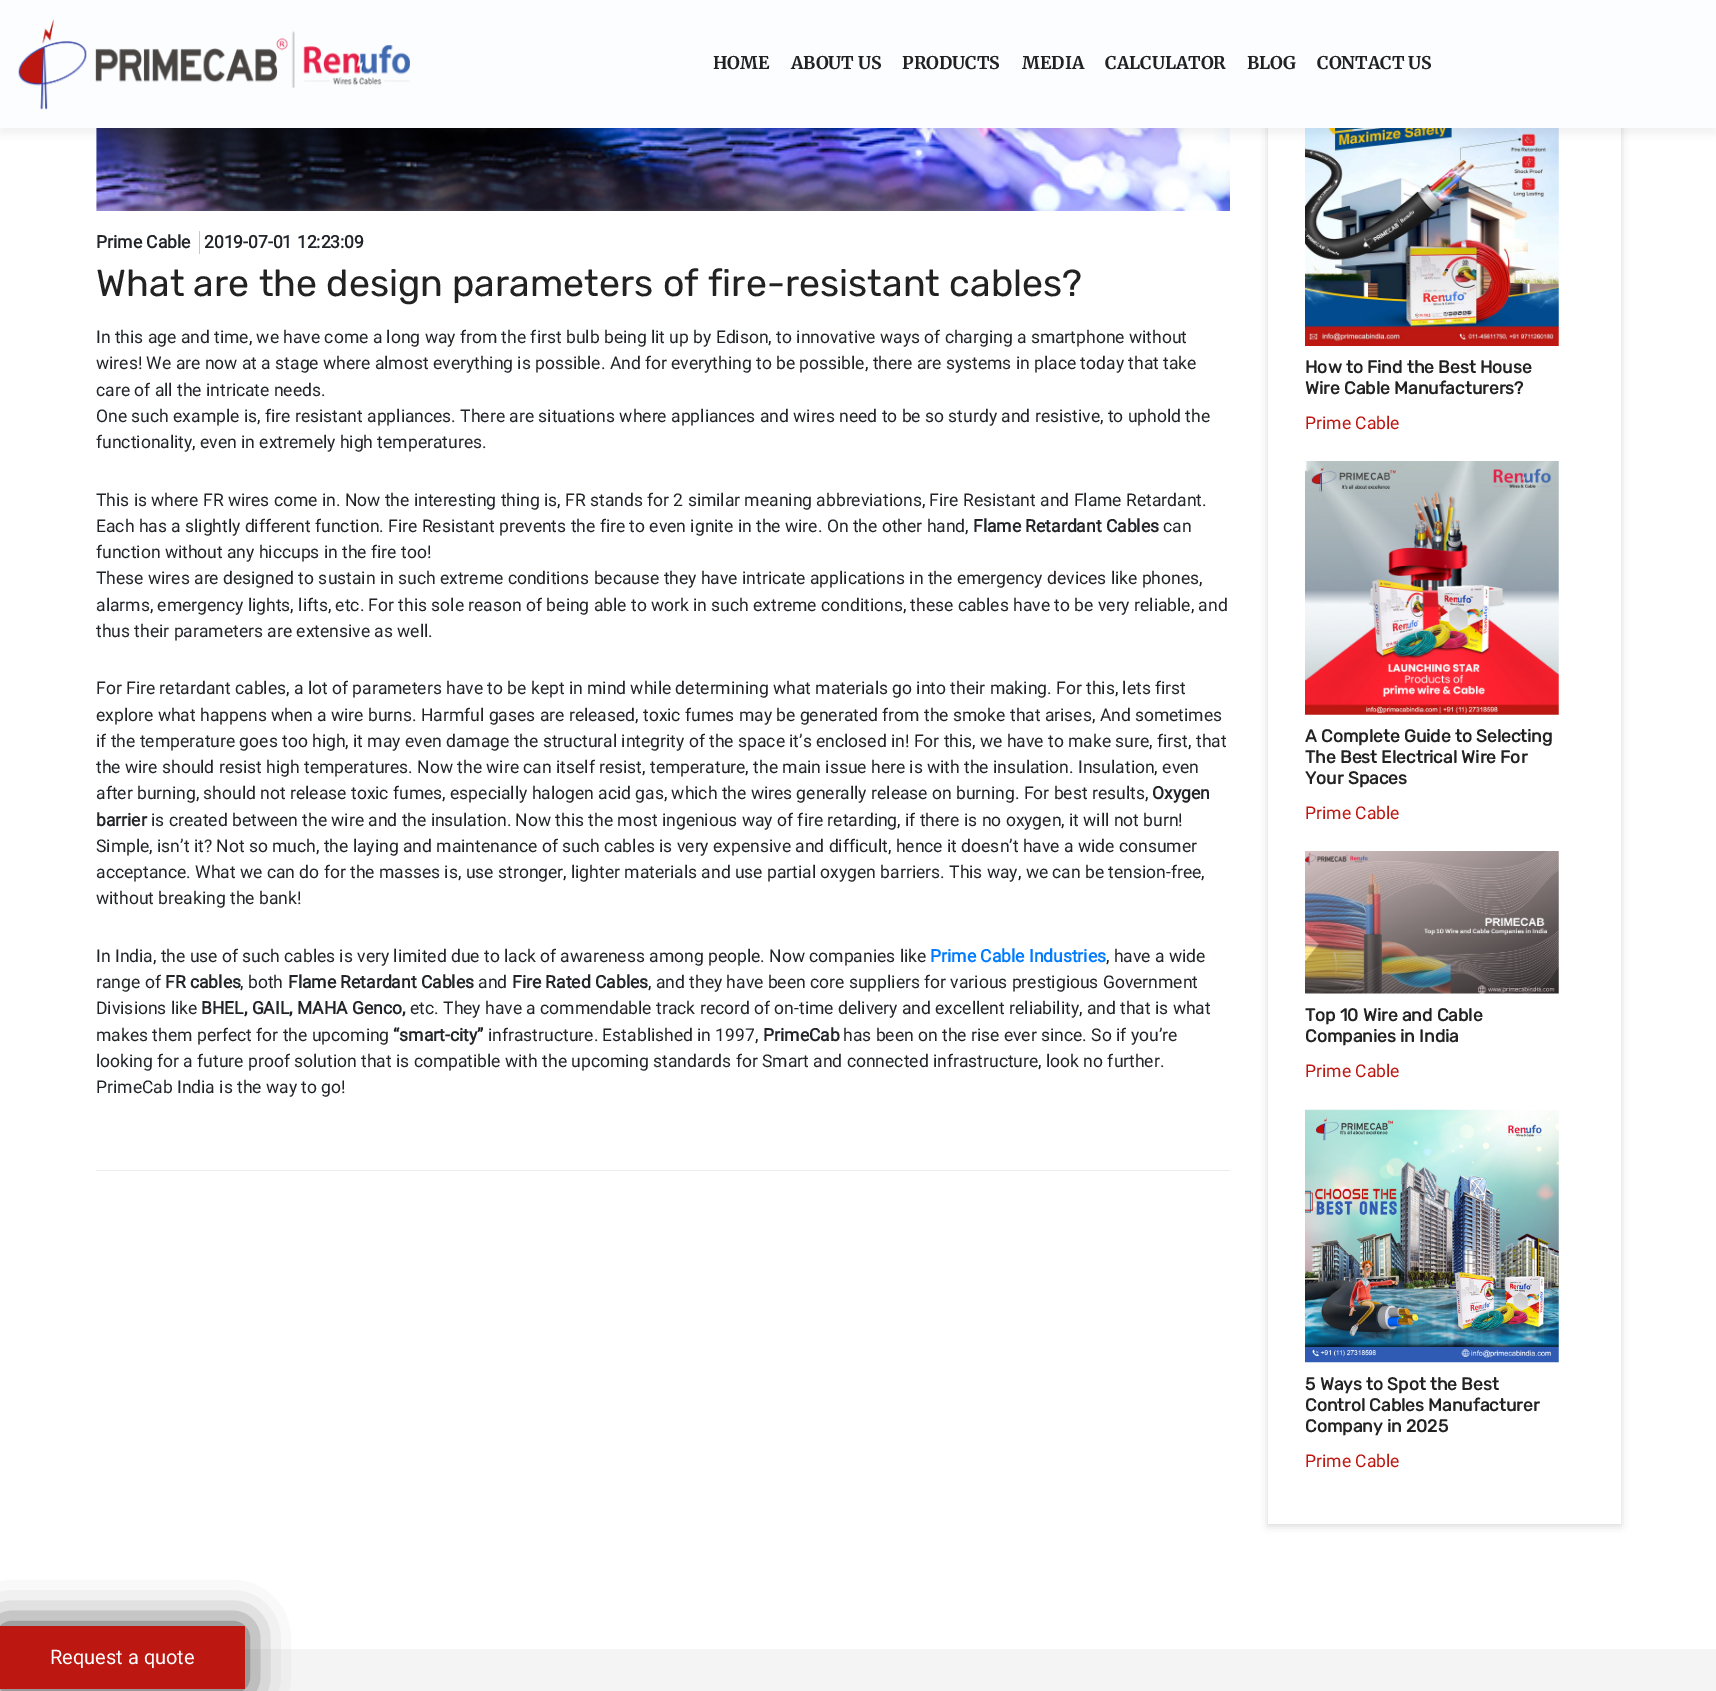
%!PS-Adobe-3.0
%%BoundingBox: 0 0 1716 1691
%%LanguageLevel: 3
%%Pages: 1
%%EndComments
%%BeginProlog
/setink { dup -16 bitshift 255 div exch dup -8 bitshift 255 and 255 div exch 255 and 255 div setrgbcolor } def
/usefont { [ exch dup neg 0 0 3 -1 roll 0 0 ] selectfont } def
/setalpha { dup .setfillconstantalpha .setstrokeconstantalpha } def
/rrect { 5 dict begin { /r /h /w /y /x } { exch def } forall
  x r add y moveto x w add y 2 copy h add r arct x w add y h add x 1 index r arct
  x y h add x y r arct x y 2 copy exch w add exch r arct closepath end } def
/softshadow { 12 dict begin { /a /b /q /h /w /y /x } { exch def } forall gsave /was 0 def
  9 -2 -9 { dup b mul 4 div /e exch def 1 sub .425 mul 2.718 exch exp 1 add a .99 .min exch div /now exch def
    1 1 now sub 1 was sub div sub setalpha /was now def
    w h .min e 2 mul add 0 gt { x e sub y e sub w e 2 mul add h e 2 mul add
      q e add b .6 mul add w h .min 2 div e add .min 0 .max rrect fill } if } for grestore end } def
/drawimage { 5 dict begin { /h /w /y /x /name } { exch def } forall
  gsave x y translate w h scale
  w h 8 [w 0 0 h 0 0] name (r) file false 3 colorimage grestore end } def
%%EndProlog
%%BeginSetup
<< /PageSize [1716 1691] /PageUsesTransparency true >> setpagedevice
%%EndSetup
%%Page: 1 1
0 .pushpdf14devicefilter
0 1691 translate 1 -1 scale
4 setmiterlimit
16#FFFFFF setink
0 0 1716 1691 rectfill
(img2.raw) 96 128 1134 83 drawimage
16#000000 setink
1268 -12 353 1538 0 4 0.15 softshadow
16#FFFFFF setink
1268 128 353 1396 rectfill
(img3.raw) 1305 128 254 218 drawimage
16#000000 setink
0 6 1716 128 0 4.5 0.05 softshadow
16#FCFDFF setink
0 0 1716 128 rectfill
(img1.raw) 18 18 392 92 drawimage
/Merriweather-Bold 17.5 usefont
16#222222 setink
[
    [(HOME) 713 69]
    [(ABOUT US) 791 69]
    [(PRODUCTS) 902 69]
    [(MEDIA) 1022 69]
    [(CALCULATOR) 1105 69]
    [(BLOG) 1247 69]
    [(CONTACT US) 1317 69]
] { aload pop moveto show } forall
16#EDEDED setink
96 1170 1134 1 rectfill
16#C9C9C9 setink
199 231 1 23 rectfill
/Roboto-Bold 17.5 usefont
16#212529 setink
96 248 moveto (Prime Cable) show
204 248 moveto (2019-07-01 12:23:09) show
/Rubik-Light 37.5 usefont
16#222222 setink
96 296 moveto (What are the design parameters of fire-resistant cables?) show
/Roboto-Regular 17.5 usefont
16#212529 setink
[
    [(In this age and time, we have come a long way from the first bulb being lit up by Edison, to innovative ways of charging a smartphone without) 96 343]
    [(wires! We are now at a stage where almost everything is possible. And for everything to be possible, there are systems in place today that take) 96 369]
    [(care of all the intricate needs.) 96 396]
    [(One such example is, fire resistant appliances. There are situations where appliances and wires need to be so sturdy and resistive, to uphold the) 96 422]
    [(functionality, even in extremely high temperatures.) 96 448]
    [(This is where FR wires come in. Now the interesting thing is, FR stands for 2 similar meaning abbreviations, Fire Resistant and Flame Retardant.) 96 506]
    [(Each has a slightly different function. Fire Resistant prevents the fire to even ignite in the wire. On the other hand,) 96 532]
] { aload pop moveto show } forall
/Roboto-Bold 17.5 usefont
973 532 moveto (Flame Retardant Cables) show
/Roboto-Regular 17.5 usefont
[
    [(can) 1163 532]
    [(function without any hiccups in the fire too!) 96 558]
    [(These wires are designed to sustain in such extreme conditions because they have intricate applications in the emergency devices like phones,) 96 584]
    [(alarms, emergency lights, lifts, etc. For this sole reason of being able to work in such extreme conditions, these cables have to be very reliable, and) 96 611]
    [(thus their parameters are extensive as well.) 96 637]
    [(For Fire retardant cables, a lot of parameters have to be kept in mind while determining what materials go into their making. For this, lets first) 96 694]
    [(explore what happens when a wire burns. Harmful gases are released, toxic fumes may be generated from the smoke that arises, And sometimes) 96 721]
    [(if the temperature goes too high, it may even damage the structural integrity of the space it’s enclosed in! For this, we have to make sure, first, that) 96 747]
    [(the wire should resist high temperatures. Now the wire can itself resist, temperature, the main issue here is with the insulation. Insulation, even) 96 773]
    [(after burning, should not release toxic fumes, especially halogen acid gas, which the wires generally release on burning. For best results,) 96 799]
] { aload pop moveto show } forall
/Roboto-Bold 17.5 usefont
1152 799 moveto (Oxygen) show
96 826 moveto (barrier) show
/Roboto-Regular 17.5 usefont
[
    [(is created between the wire and the insulation. Now this the most ingenious way of fire retarding, if there is no oxygen, it will not burn!) 151 826]
    [(Simple, isn’t it? Not so much, the laying and maintenance of such cables is very expensive and difficult, hence it doesn’t have a wide consumer) 96 852]
    [(acceptance. What we can do for the masses is, use stronger, lighter materials and use partial oxygen barriers. This way, we can be tension-free,) 96 878]
    [(without breaking the bank!) 96 904]
    [(In India, the use of such cables is very limited due to lack of awareness among people. Now companies like) 96 962]
] { aload pop moveto show } forall
/Roboto-Bold 17.5 usefont
16#007BFF setink
930 962 moveto (Prime Cable Industries) show
/Roboto-Regular 17.5 usefont
16#212529 setink
1106 962 moveto (, have a wide) show
96 988 moveto (range of) show
/Roboto-Bold 17.5 usefont
165 988 moveto (FR cables) show
/Roboto-Regular 17.5 usefont
240 988 moveto (, both) show
/Roboto-Bold 17.5 usefont
288 988 moveto (Flame Retardant Cables) show
/Roboto-Regular 17.5 usefont
478 988 moveto (and) show
/Roboto-Bold 17.5 usefont
512 988 moveto (Fire Rated Cables) show
/Roboto-Regular 17.5 usefont
648 988 moveto (, and they have been core suppliers for various prestigious Government) show
96 1014 moveto (Divisions like) show
/Roboto-Bold 17.5 usefont
201 1014 moveto (BHEL, GAIL, MAHA Genco,) show
/Roboto-Regular 17.5 usefont
410 1014 moveto (etc. They have a commendable track record of on-time delivery and excellent reliability, and that is what) show
96 1041 moveto (makes them perfect for the upcoming) show
/Roboto-Bold 17.5 usefont
393 1041 moveto (“smart-city”) show
/Roboto-Regular 17.5 usefont
488 1041 moveto (infrastructure. Established in 1997,) show
/Roboto-Bold 17.5 usefont
763 1041 moveto (PrimeCab) show
/Roboto-Regular 17.5 usefont
[
    [(has been on the rise ever since. So if you’re) 843 1041]
    [(looking for a future proof solution that is compatible with the upcoming standards for Smart and connected infrastructure, look no further.) 96 1067]
    [(PrimeCab India is the way to go!) 96 1093]
] { aload pop moveto show } forall
/Rubik-Bold 17.5 usefont
16#222222 setink
1305 373 moveto (How to Find the Best House) show
1305 394 moveto (Wire Cable Manufacturers?) show
/Roboto-Regular 17.5 usefont
16#BC1711 setink
1305 429 moveto (Prime Cable) show
(img4.raw) 1305 461 254 254 drawimage
/Rubik-Bold 17.5 usefont
16#222222 setink
[
    [(A Complete Guide to Selecting) 1305 742]
    [(The Best Electrical Wire For) 1305 763]
    [(Your Spaces) 1305 784]
] { aload pop moveto show } forall
/Roboto-Regular 17.5 usefont
16#BC1711 setink
1305 819 moveto (Prime Cable) show
(img5.raw) 1305 851 254 143 drawimage
/Rubik-Bold 17.5 usefont
16#222222 setink
1305 1021 moveto (Top 10 Wire and Cable) show
1305 1042 moveto (Companies in India) show
/Roboto-Regular 17.5 usefont
16#BC1711 setink
1305 1077 moveto (Prime Cable) show
(img6.raw) 1305 1109 254 254 drawimage
/Rubik-Bold 17.5 usefont
16#222222 setink
[
    [(5 Ways to Spot the Best) 1305 1390]
    [(Control Cables Manufacturer) 1305 1411]
    [(Company in 2025) 1305 1432]
] { aload pop moveto show } forall
/Roboto-Regular 17.5 usefont
16#BC1711 setink
1305 1467 moveto (Prime Cable) show
16#F4F4F4 setink
0 1649 1716 42 rectfill
16#000000 setink
0 1626 245 63 0 20.5 0.75 softshadow
16#BC1711 setink
0 1626 245 63 rectfill
/Roboto-Regular 20 usefont
16#FFFFFF setink
50 1664 moveto (Request a quote) show
.poppdf14devicefilter showpage
%%EOF
